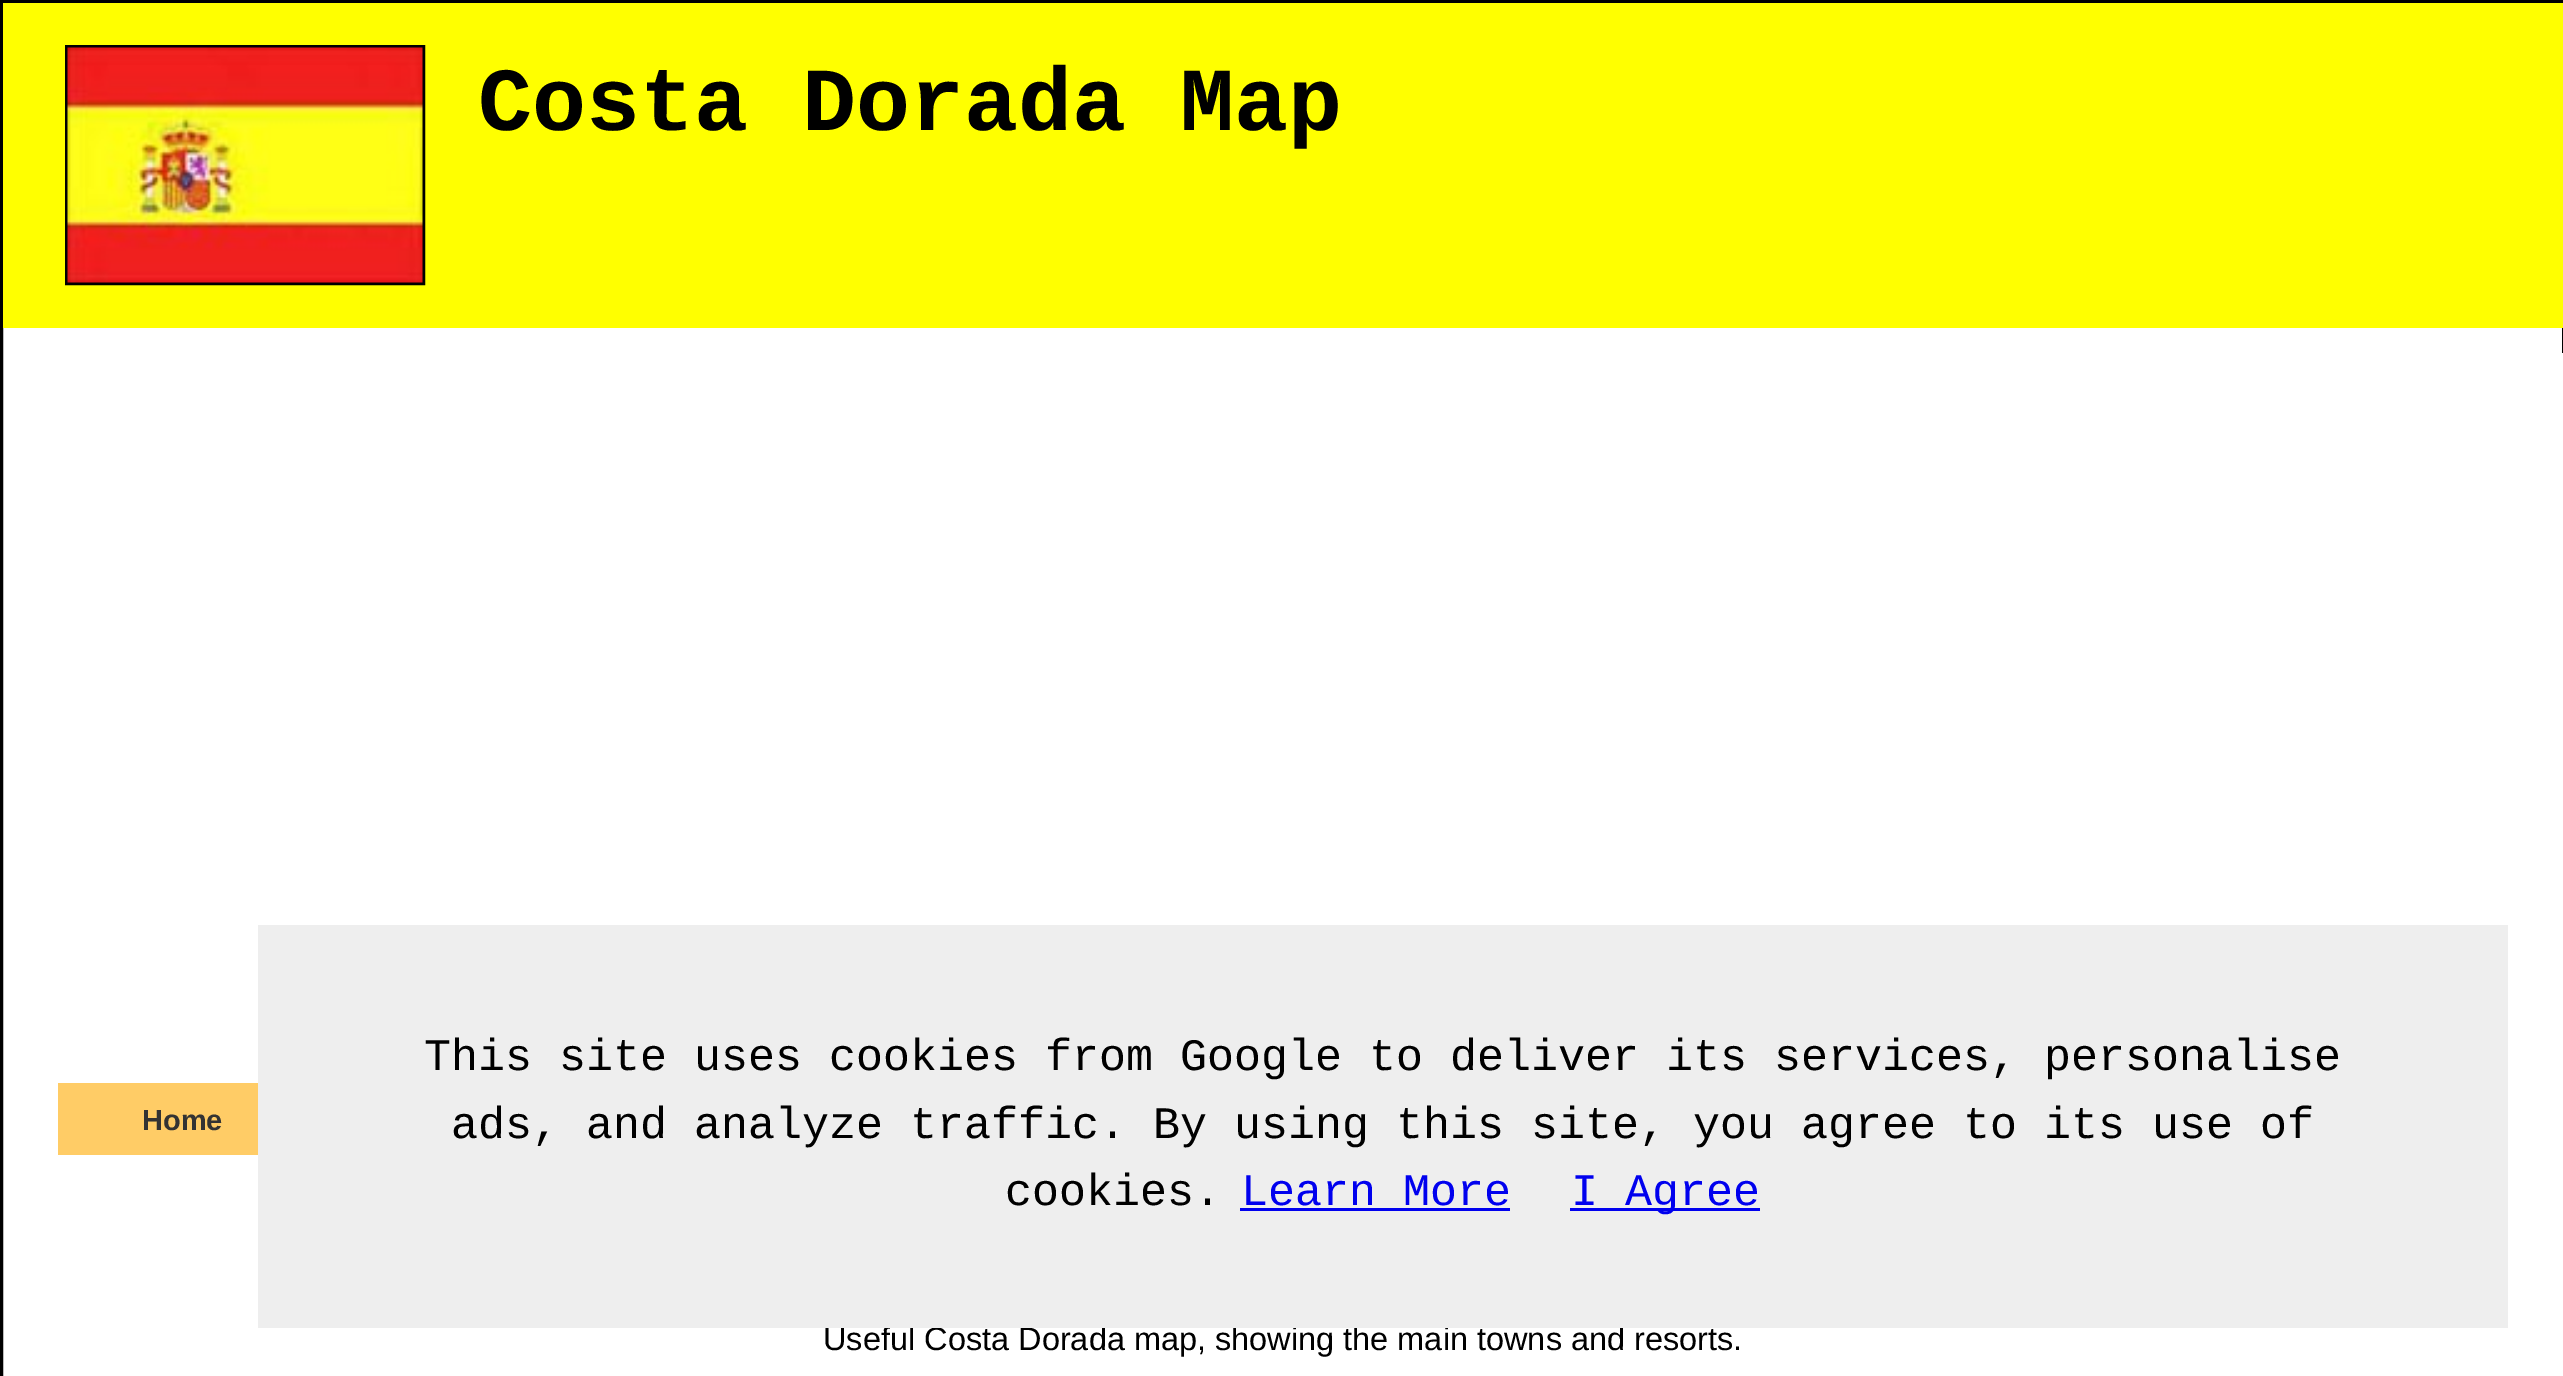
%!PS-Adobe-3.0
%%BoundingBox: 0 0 2563 1376
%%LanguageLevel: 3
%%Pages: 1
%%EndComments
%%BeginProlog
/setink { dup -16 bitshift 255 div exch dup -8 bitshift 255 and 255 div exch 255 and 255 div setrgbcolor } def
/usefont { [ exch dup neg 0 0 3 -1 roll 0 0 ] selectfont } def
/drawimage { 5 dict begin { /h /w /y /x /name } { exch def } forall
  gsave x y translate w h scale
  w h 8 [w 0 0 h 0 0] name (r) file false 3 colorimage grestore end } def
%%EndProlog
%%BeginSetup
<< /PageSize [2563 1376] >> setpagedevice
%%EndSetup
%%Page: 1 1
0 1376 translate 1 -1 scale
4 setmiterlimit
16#FFFFFF setink
0 0 2563 1376 rectfill
16#000000 setink
3 setlinewidth
1.5 1.5 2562 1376 rectstroke
16#FFFF00 setink
3 3 2560 325 rectfill
16#000000 setink
66.5 46.5 357 237 rectstroke
(img1.raw) 67 47 356 236 drawimage
/LiberationMono-Bold 90 usefont
478 130 moveto (Costa Dorada Map) show
16#FFFFFF setink
2562 353 1 1023 rectfill
16#FFCC66 setink
58 1083 200 72 rectfill
/LiberationSans-Bold 29 usefont
16#333333 setink
142 1130 moveto (Home) show
/LiberationSans-Regular 32.5 usefont
16#000000 setink
823 1350 moveto (Useful Costa Dorada map, showing the main towns and resorts.) show
16#EEEEEE setink
258 925 2250 403 rectfill
/LiberationMono-Regular 45 usefont
16#000000 setink
[
    [(This site uses cookies from Google to deliver its services, personalise) 424 1070]
    [(ads, and analyze traffic. By using this site, you agree to its use of) 451 1138]
    [(cookies.) 1005 1205]
] { aload pop moveto show } forall
16#0000EE setink
1241 1205 moveto (Learn More) show
1240 1208 270 3 rectfill
1570 1208 190 3 rectfill
1571 1205 moveto (I Agree) show
showpage
%%EOF
